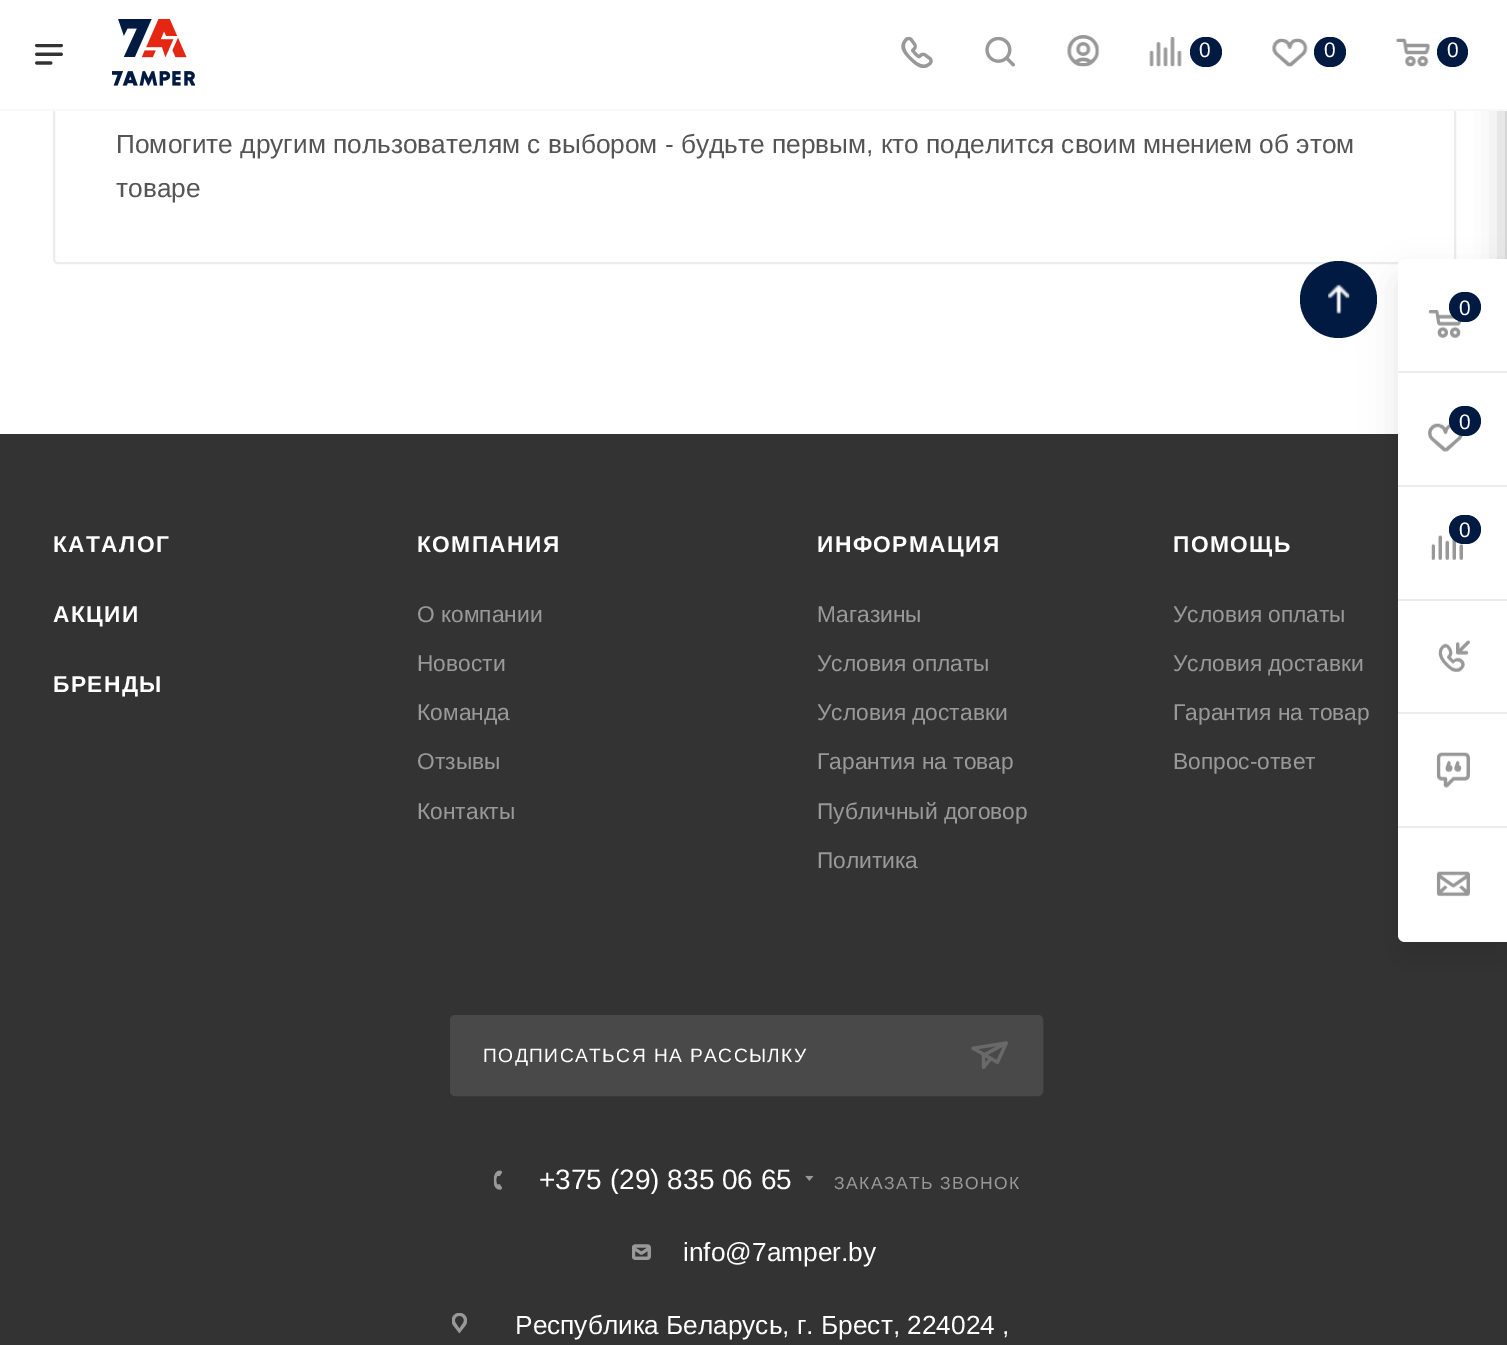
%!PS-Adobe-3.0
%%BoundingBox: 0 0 1507 1345
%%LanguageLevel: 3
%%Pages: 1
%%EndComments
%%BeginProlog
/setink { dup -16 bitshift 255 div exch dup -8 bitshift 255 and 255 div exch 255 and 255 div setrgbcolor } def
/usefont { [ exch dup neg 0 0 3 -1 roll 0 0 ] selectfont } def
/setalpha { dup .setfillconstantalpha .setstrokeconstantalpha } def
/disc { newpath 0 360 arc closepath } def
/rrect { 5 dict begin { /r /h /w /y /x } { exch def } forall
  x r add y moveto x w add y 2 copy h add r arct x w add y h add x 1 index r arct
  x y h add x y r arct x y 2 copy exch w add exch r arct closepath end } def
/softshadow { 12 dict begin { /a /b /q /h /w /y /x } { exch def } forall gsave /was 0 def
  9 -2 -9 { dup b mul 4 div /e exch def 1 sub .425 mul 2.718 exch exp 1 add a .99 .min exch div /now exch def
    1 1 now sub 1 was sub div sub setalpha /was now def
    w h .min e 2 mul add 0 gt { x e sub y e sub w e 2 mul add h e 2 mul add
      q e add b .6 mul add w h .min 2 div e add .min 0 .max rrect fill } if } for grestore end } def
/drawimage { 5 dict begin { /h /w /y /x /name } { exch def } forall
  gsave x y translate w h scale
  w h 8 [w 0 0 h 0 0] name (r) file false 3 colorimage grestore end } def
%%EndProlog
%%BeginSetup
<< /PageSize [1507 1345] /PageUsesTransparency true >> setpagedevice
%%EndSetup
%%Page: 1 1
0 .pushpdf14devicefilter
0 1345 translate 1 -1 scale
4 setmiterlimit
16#FFFFFF setink
0 0 1507 1345 rectfill
16#ECECEC setink
2 setlinewidth
54 75 1401 188 4 rrect stroke
16#333333 setink
0 434 1507 911 rectfill
16#2C2C2C setink
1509 11 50 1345 4 16 0.4 softshadow
16#FFFFFF setink
53 0 1454 109 rectfill
16#F8F8F8 setink
0 109 1507 2 rectfill
(img1.raw) 35 44 28 21 drawimage
(img2.raw) 112 19 83 67 drawimage
(img3.raw) 901 37 32 31 drawimage
(img4.raw) 985 37 30 30 drawimage
(img5.raw) 1067 35 33 32 drawimage
(img6.raw) 1149 37 33 30 drawimage
16#001A41 setink
1190 37 32 30 15 rrect fill
/LiberationSans-Regular 21 usefont
16#FFFFFF setink
1199 57 moveto (0) show
(img7.raw) 1272 38 36 29 drawimage
16#001A41 setink
1314 37 32 30 15 rrect fill
16#FFFFFF setink
1324 57 moveto (0) show
(img8.raw) 1396 38 34 29 drawimage
16#001A41 setink
1437 37 31 30 15 rrect fill
16#FFFFFF setink
1447 57 moveto (0) show
/LiberationSans-Regular 26.25 usefont
16#555555 setink
116 153 moveto (Помогите другим пользователям с выбором - будьте первым, кто поделится своим мнением об этом) show
116 197 moveto (товаре) show
16#001A41 setink
1338.5 299.5 38.5 disc fill
(img9.raw) 1328 284 22 30 drawimage
16#000000 setink
1398 277 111 682 7 17.5 0.1 softshadow
16#FFFFFF setink
1405 259 moveto 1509 259 lineto 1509 942 lineto 1405 942 lineto 1401 942 1398 939 1398 935 curveto 1398 266 lineto 1398 262 1401 259 1405 259 curveto closepath fill
16#ECECEC setink
1398 371 109 2 rectfill
(img10.raw) 1428 310 34 28 drawimage
16#001A41 setink
1449 292 32 30 15 rrect fill
/LiberationSans-Regular 21 usefont
16#FFFFFF setink
1459 315 moveto (0) show
16#ECECEC setink
1398 485 109 2 rectfill
(img11.raw) 1428 423 35 29 drawimage
16#001A41 setink
1449 406 32 30 15 rrect fill
16#FFFFFF setink
1459 429 moveto (0) show
16#ECECEC setink
1398 599 109 2 rectfill
(img12.raw) 1431 535 32 25 drawimage
16#001A41 setink
1449 515 32 29 14.5 rrect fill
16#FFFFFF setink
1459 537 moveto (0) show
16#ECECEC setink
1398 712 109 2 rectfill
(img13.raw) 1438 640 32 33 drawimage
1398 826 109 2 rectfill
(img14.raw) 1436 752 34 36 drawimage
(img15.raw) 1436 871 34 26 drawimage
/LiberationSans-Bold 22.75 usefont
16#FFFFFF setink
53 552 moveto 1.4 0 (КАТАЛОГ) ashow
53 622 moveto 1.4 0 (АКЦИИ) ashow
53 692 moveto 1.4 0 (БРЕНДЫ) ashow
417 552 moveto 1.4 0 (КОМПАНИЯ) ashow
/LiberationSans-Regular 22.75 usefont
16#999999 setink
[
    [(О компании) 417 622]
    [(Новости) 417 671]
    [(Команда) 417 720]
    [(Отзывы) 417 769]
    [(Контакты) 417 819]
] { aload pop moveto show } forall
/LiberationSans-Bold 22.75 usefont
16#FFFFFF setink
817 552 moveto 1.4 0 (ИНФОРМАЦИЯ) ashow
/LiberationSans-Regular 22.75 usefont
16#999999 setink
[
    [(Магазины) 817 622]
    [(Условия оплаты) 817 671]
    [(Условия доставки) 817 720]
    [(Гарантия на товар) 817 769]
    [(Публичный договор) 817 819]
    [(Политика) 817 868]
] { aload pop moveto show } forall
/LiberationSans-Bold 22.75 usefont
16#FFFFFF setink
1173 552 moveto 1.4 0 (ПОМОЩЬ) ashow
/LiberationSans-Regular 22.75 usefont
16#999999 setink
[
    [(Условия оплаты) 1173 622]
    [(Условия доставки) 1173 671]
    [(Гарантия на товар) 1173 720]
    [(Вопрос-ответ) 1173 769]
] { aload pop moveto show } forall
16#494949 setink
451 1016 591 79 4 rrect gsave fill grestore
stroke
/LiberationSans-Regular 19.25 usefont
16#FFFFFF setink
483 1062 moveto 1.4 0 (ПОДПИСАТЬСЯ НА РАССЫЛКУ) ashow
(img16.raw) 971 1041 37 28 drawimage
(img17.raw) 493 1170 9 20 drawimage
gsave
488 1166 326 28 rectclip
/LiberationSans-Regular 28 usefont
539 1189 moveto (+375 \(29\) 835 06 65) show
grestore
(img18.raw) 805 1175 9 6 drawimage
/LiberationSans-Regular 17.5 usefont
16#999999 setink
834 1189 moveto 1.4 0 (ЗАКАЗАТЬ ЗВОНОК) ashow
(img19.raw) 632 1244 19 16 drawimage
/LiberationSans-Regular 26.25 usefont
16#FFFFFF setink
683 1261 moveto (info@7amper.by) show
(img20.raw) 452 1313 15 21 drawimage
515 1334 moveto (Республика Беларусь, г. Брест, 224024 ,) show
.poppdf14devicefilter showpage
%%EOF
